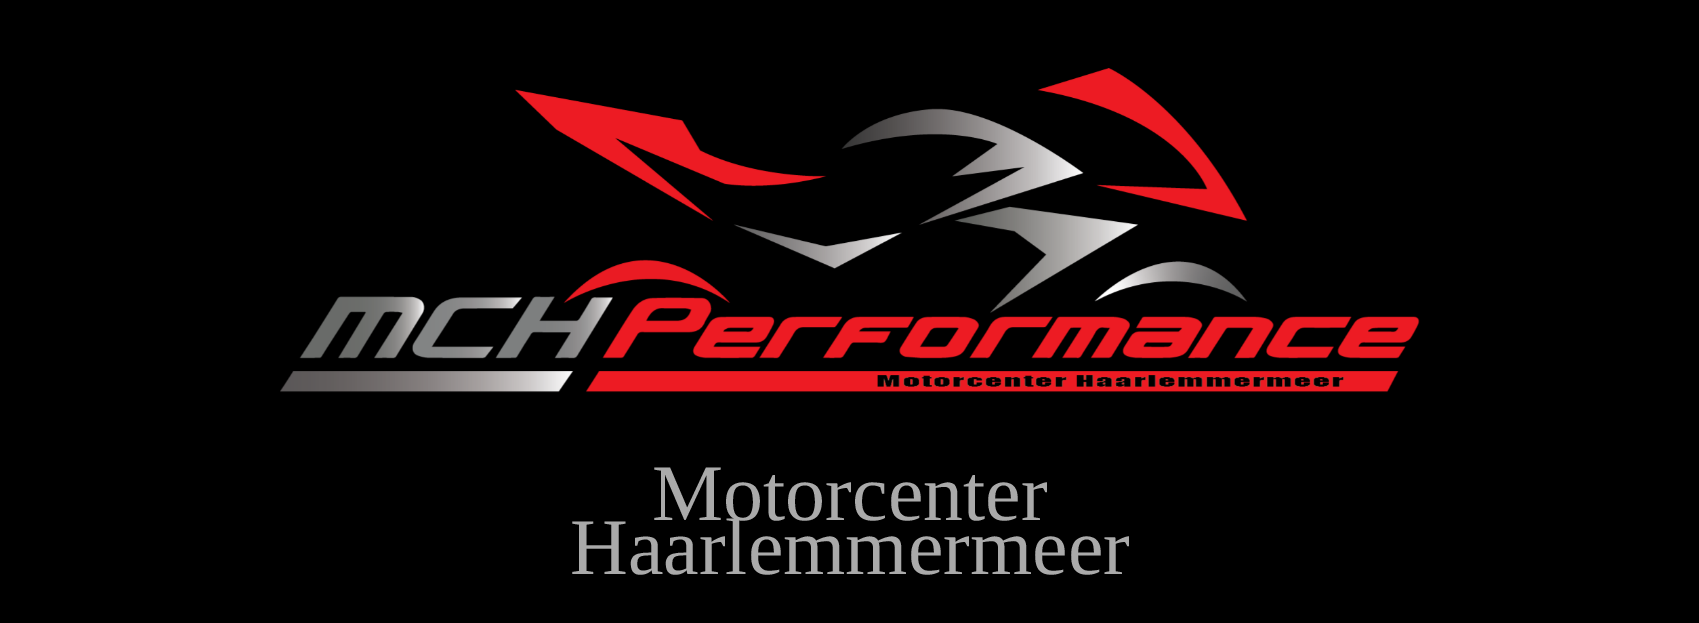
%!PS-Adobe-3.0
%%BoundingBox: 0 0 1699 623
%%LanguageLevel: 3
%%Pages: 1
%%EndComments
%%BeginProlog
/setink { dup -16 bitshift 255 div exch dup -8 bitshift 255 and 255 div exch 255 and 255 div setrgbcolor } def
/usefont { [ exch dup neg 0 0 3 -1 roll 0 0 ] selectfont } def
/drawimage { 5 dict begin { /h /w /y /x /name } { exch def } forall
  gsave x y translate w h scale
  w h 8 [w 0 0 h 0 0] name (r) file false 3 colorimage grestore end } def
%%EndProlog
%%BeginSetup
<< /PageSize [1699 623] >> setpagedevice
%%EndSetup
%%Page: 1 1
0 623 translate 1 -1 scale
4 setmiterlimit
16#000000 setink
0 0 1699 623 rectfill
(img1.raw) 280 68 1140 325 drawimage
/LiberationSerif-Regular 80 usefont
16#AAAAAA setink
652 520 moveto (Motorcenter) show
570 574 moveto (Haarlemmermeer) show
showpage
%%EOF
